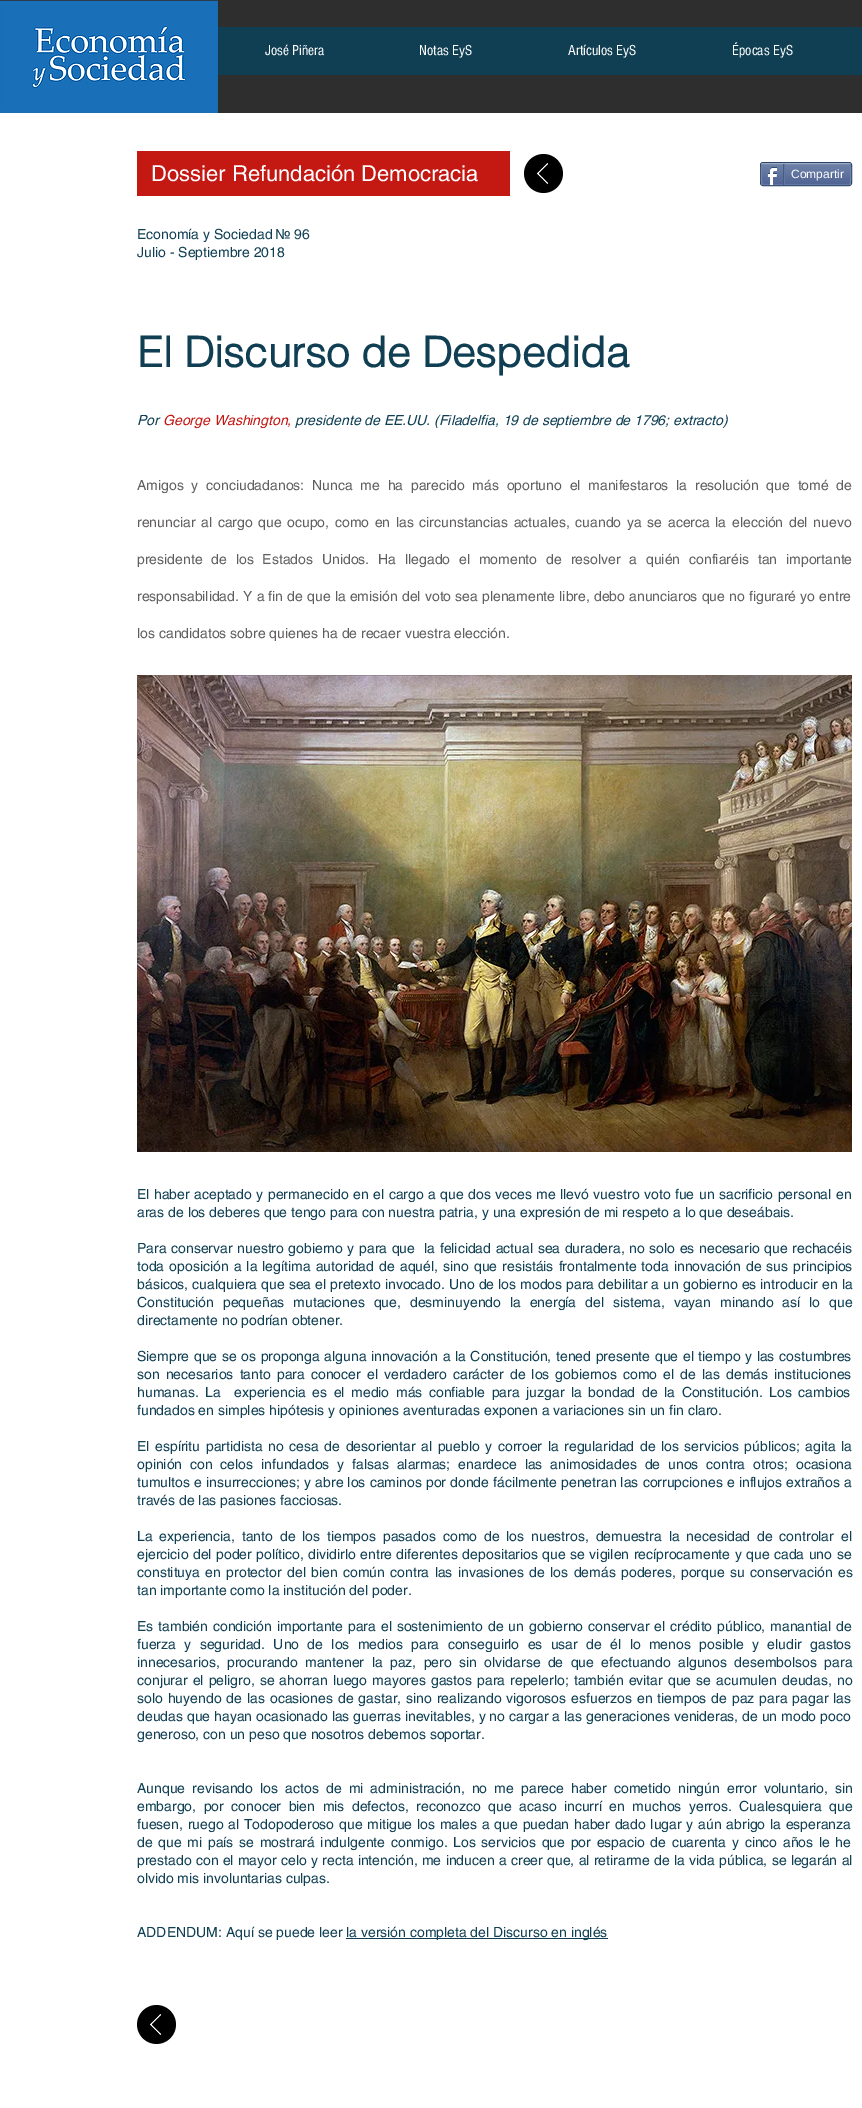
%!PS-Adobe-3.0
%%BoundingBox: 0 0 862 2108
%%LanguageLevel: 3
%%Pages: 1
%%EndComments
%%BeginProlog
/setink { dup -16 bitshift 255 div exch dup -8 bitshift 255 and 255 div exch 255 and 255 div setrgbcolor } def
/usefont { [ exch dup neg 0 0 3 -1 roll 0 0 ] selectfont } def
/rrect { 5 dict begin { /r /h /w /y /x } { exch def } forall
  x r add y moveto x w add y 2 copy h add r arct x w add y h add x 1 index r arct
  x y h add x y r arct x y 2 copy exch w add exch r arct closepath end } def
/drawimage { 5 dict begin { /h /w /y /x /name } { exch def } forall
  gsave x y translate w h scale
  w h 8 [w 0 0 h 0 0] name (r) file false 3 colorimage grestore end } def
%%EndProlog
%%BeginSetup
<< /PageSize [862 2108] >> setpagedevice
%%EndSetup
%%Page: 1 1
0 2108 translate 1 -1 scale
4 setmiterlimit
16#FFFFFF setink
0 0 862 2108 rectfill
16#2F2E2E setink
0 0 862 113 rectfill
(img1.raw) 0 0 218 113 drawimage
16#103F54 setink
218 27 644 48 rectfill
/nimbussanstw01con-Regular 15 usefont
16#FFFFFF setink
[
    [(José Piñera) 265 55]
    [(Notas EyS) 419 55]
    [(Artículos EyS) 568 55]
    [(Épocas EyS) 732 55]
] { aload pop moveto show } forall
16#C41813 setink
137 151 373 45 rectfill
(img2.raw) 524 154 39 39 drawimage
/helvetica-Regular 22 usefont
16#FFFFFF setink
151 181 moveto (Dossier Refundación Democracia) show
16#2D4565 setink
760.5 162.5 91 23 2.5 rrect stroke
(img3.raw) 761 164 90 21 drawimage
16#9AABC6 setink
762 164 moveto 763 163.5 lineto 849 163.5 lineto 850 164 lineto stroke
16#6F83AD setink
850 164 moveto 851 164.5 851 183.5 850 184 curveto stroke
16#6176A3 setink
850 184 moveto 849 184.5 lineto 763 184.5 lineto 762 184 lineto stroke
16#6F83AD setink
762 184 moveto 761 183.5 761 164.5 762 164 curveto stroke
(img4.raw) 767 167 10 18 drawimage
16#425E85 setink
783 164 1 21 rectfill
/LiberationSans-Regular 12 usefont
16#FFFFFF setink
791 178 moveto (Compartir) show
16#6176A3 setink
784 164 1 20 rectfill
/helvetica-Regular 14 usefont
16#103F54 setink
137 239 moveto (Economía y Sociedad № 96) show
137 257 moveto (Julio - Septiembre 2018) show
/helvetica-Bold 42 usefont
137 367 moveto (El Discurso de Despedida) show
/helvetica-Italic 14 usefont
137 425 moveto (Por) show
16#C41813 setink
163 425 moveto (George Washington,) show
16#103F54 setink
295 425 moveto (presidente de EE.UU. \(Filadelfia, 19 de septiembre de 1796; extracto\)) show
/helvetica-Regular 14 usefont
16#605E5E setink
137 490 moveto 3.9 0 32 (Amigos y conciudadanos: Nunca me ha parecido más oportuno el manifestaros la resolución que tomé de) widthshow
137 527 moveto 1.75 0 32 (renunciar al cargo que ocupo, como en las circunstancias actuales, cuando ya se acerca la elección del nuevo) widthshow
137 564 moveto 5 0 32 (presidente de los Estados Unidos. Ha llegado el momento de resolver a quién confiaréis tan importante) widthshow
137 601 moveto 0.25 0 32 (responsabilidad. Y a fin de que la emisión del voto sea plenamente libre, debo anunciaros que no figuraré yo entre) widthshow
137 638 moveto (los candidatos sobre quienes ha de recaer vuestra elección.) show
(img5.raw) 137 675 715 477 drawimage
16#103F54 setink
137 1199 moveto 0.6 0 32 (El haber aceptado y permanecido en el cargo a que dos veces me llevó vuestro voto fue un sacrificio personal en) widthshow
137 1217 moveto (aras de los deberes que tengo para con nuestra patria, y una expresión de mi respeto a lo que deseábais.) show
137 1253 moveto 0.7 0 32 (Para conservar nuestro gobierno y para que  la felicidad actual sea duradera, no solo es necesario que rechacéis) widthshow
137 1271 moveto 1.2 0 32 (toda oposición a la legítima autoridad de aquél, sino que resistáis frontalmente toda innovación de sus principios) widthshow
137 1289 moveto 0.2 0 32 (básicos, cualquiera que sea el pretexto invocado. Uno de los modos para debilitar a un gobierno es introducir en la) widthshow
137 1307 moveto 5 0 32 (Constitución pequeñas mutaciones que, desminuyendo la energía del sistema, vayan minando así lo que) widthshow
137 1325 moveto (directamente no podrían obtener.) show
137 1361 moveto 0.75 0 32 (Siempre que se os proponga alguna innovación a la Constitución, tened presente que el tiempo y las costumbres) widthshow
137 1379 moveto 2.25 0 32 (son necesarios tanto para conocer el verdadero carácter de los gobiernos como el de las demás instituciones) widthshow
137 1397 moveto 2.75 0 32 (humanas. La  experiencia es el medio más confiable para juzgar la bondad de la Constitución. Los cambios) widthshow
137 1415 moveto (fundados en simples hipótesis y opiniones aventuradas exponen a variaciones sin un fin claro.) show
137 1451 moveto 1.7 0 32 (El espíritu partidista no cesa de desorientar al pueblo y corroer la regularidad de los servicios públicos; agita la) widthshow
137 1469 moveto 4 0 32 (opinión con celos infundados y falsas alarmas; enardece las animosidades de unos contra otros; ocasiona) widthshow
137 1487 moveto 0.25 0 32 (tumultos e insurrecciones; y abre los caminos por donde fácilmente penetran las corrupciones e influjos extraños a) widthshow
137 1505 moveto (través de las pasiones facciosas.) show
137 1541 moveto 3 0 32 (La experiencia, tanto de los tiempos pasados como de los nuestros, demuestra la necesidad de controlar el) widthshow
137 1559 moveto 0.6 0 32 (ejercicio del poder político, dividirlo entre diferentes depositarios que se vigilen recíprocamente y que cada uno se) widthshow
137 1577 moveto 1.5 0 32 (constituya en protector del bien común contra las invasiones de los demás poderes, porque su conservación es) widthshow
137 1595 moveto (tan importante como la institución del poder.) show
137 1631 moveto 1 0 32 (Es también condición importante para el sostenimiento de un gobierno conservar el crédito público, manantial de) widthshow
137 1649 moveto 4.5 0 32 (fuerza y seguridad. Uno de los medios para conseguirlo es usar de él lo menos posible y eludir gastos) widthshow
137 1667 moveto 3.5 0 32 (innecesarios, procurando mantener la paz, pero sin olvidarse de que efectuando algunos desembolsos para) widthshow
137 1685 moveto 1.2 0 32 (conjurar el peligro, se ahorran luego mayores gastos para repelerlo; también evitar que se acumulen deudas, no) widthshow
137 1703 moveto 1.1 0 32 (solo huyendo de las ocasiones de gastar, sino realizando vigorosos esfuerzos en tiempos de paz para pagar las) widthshow
137 1721 moveto (deudas que hayan ocasionado las guerras inevitables, y no cargar a las generaciones venideras, de un modo poco) show
137 1739 moveto (generoso, con un peso que nosotros debemos soportar.) show
137 1793 moveto 3.25 0 32 (Aunque revisando los actos de mi administración, no me parece haber cometido ningún error voluntario, sin) widthshow
137 1811 moveto 3.6 0 32 (embargo, por conocer bien mis defectos, reconozco que acaso incurrí en muchos yerros. Cualesquiera que) widthshow
137 1829 moveto 0.9 0 32 (fuesen, ruego al Todopoderoso que mitigue los males a que puedan haber dado lugar y aún abrigo la esperanza) widthshow
137 1847 moveto 1.8 0 32 (de que mi país se mostrará indulgente conmigo. Los servicios que por espacio de cuarenta y cinco años le he) widthshow
137 1865 moveto 0.4 0 32 (prestado con el mayor celo y recta intención, me inducen a creer que, al retirarme de la vida pública, se legarán al) widthshow
137 1883 moveto (olvido mis involuntarias culpas.) show
137 1937 moveto (ADDENDUM: Aquí se puede leer) show
346 1938 262 1 rectfill
346 1937 moveto (la versión completa del Discurso en inglés) show
(img2.raw) 137 2005 39 39 drawimage
showpage
%%EOF
